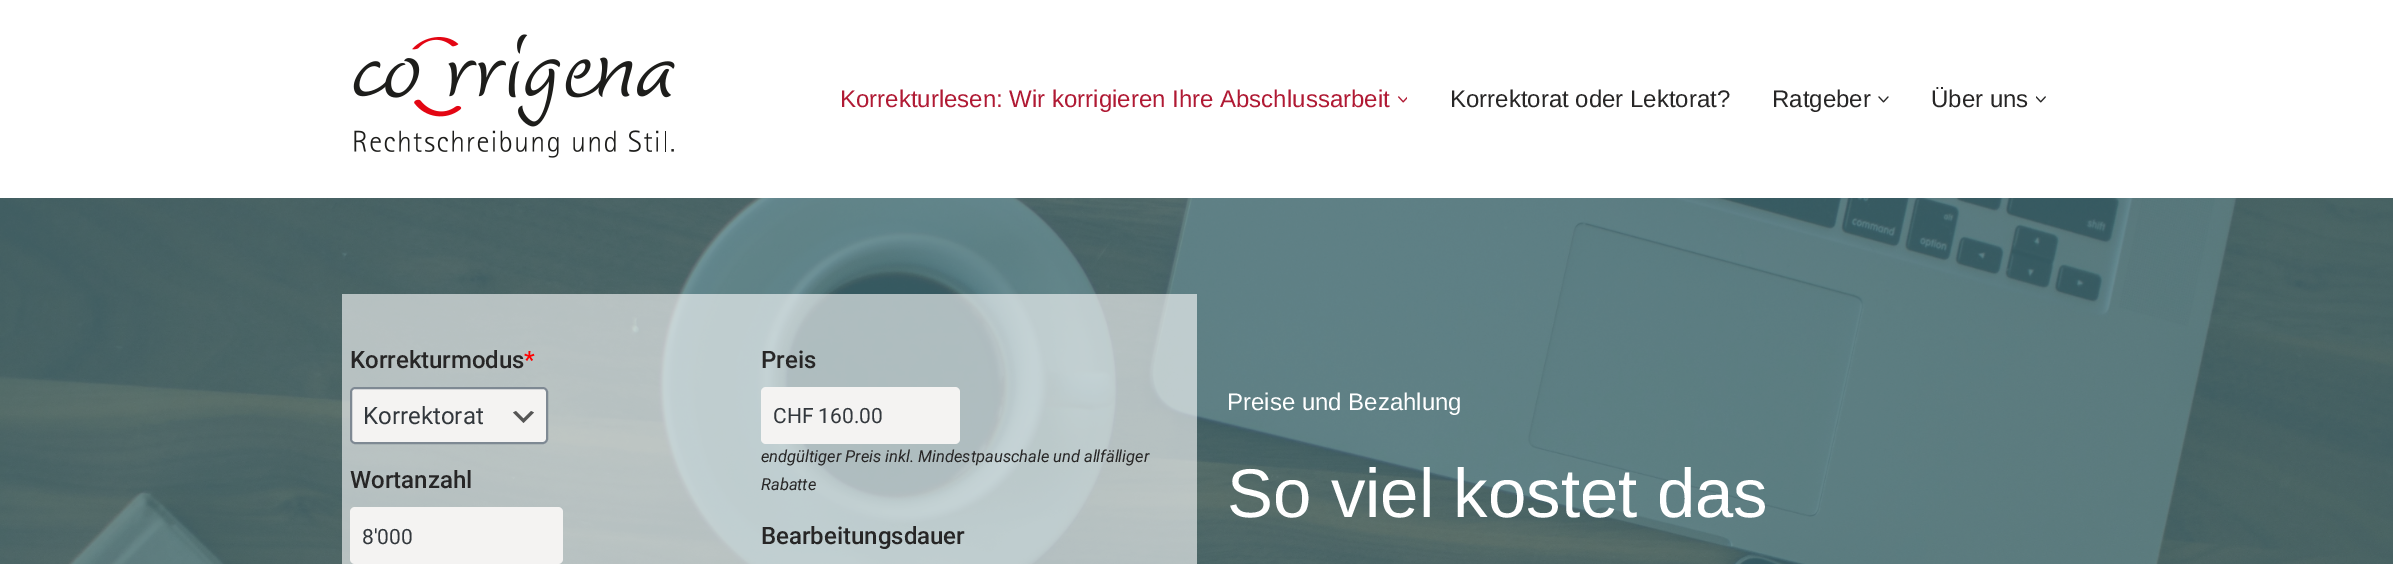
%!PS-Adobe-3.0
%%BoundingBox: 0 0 2393 564
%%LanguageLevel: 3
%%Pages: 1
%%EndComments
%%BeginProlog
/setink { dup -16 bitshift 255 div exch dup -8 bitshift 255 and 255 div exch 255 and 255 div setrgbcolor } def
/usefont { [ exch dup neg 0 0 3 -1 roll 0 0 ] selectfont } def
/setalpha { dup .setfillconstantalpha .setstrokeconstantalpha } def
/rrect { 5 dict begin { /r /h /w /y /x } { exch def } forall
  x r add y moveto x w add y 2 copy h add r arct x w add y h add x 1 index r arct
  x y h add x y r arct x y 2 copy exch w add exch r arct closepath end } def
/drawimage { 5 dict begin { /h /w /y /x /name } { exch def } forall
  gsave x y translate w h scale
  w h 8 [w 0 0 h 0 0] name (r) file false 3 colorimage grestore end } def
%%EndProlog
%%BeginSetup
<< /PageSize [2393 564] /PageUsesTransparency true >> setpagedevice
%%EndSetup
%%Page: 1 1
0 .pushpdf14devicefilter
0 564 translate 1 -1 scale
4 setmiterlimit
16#FFFFFF setink
0 0 2393 564 rectfill
(img1.raw) 353 34 322 124 drawimage
/LiberationSans-Regular 24 usefont
16#B01A34 setink
840 107 moveto (Korrekturlesen: Wir korrigieren Ihre Abschlussarbeit) show
(img2.raw) 1398 96 9 7 drawimage
16#272626 setink
1450 107 moveto (Korrektorat oder Lektorat?) show
1772 107 moveto (Ratgeber) show
(img3.raw) 1878 96 11 7 drawimage
1931 107 moveto (Über uns) show
(img4.raw) 2036 96 10 7 drawimage
(img5.raw) 0 198 2393 366 drawimage
0.6 setalpha
16#FFFFFF setink
342 294 855 270 rectfill
/Roboto-Medium 24 usefont
1 setalpha
16#272626 setink
350 368 moveto (Korrekturmodus) show
16#FF0000 setink
524 368 moveto (*) show
16#F4F3F2 setink
350 387 198 57 5 rrect fill
16#555555 setink
516 411 moveto 523.5 418.5 lineto 531 411 lineto 534 412.5 lineto 523.5 423 lineto 513 412.5 lineto closepath fill
16#7E8993 setink
2 setlinewidth
351 388 196 55 4 rrect stroke
/Roboto-Regular 24 usefont
16#32373C setink
363 424 moveto (Korrektorat) show
/Roboto-Medium 24 usefont
16#272626 setink
350 488 moveto (Wortanzahl) show
16#F4F3F2 setink
350 507 213 57 5 rrect fill
/Roboto-Regular 21 usefont
16#32373C setink
362 544 moveto (8'000) show
/Roboto-Medium 24 usefont
16#272626 setink
761 368 moveto (Preis) show
16#F4F3F2 setink
761 387 199 57 5 rrect fill
/Roboto-Regular 21 usefont
16#32373C setink
773 423 moveto (CHF 160.00) show
/Roboto-Italic 16.5 usefont
16#272626 setink
761 462 moveto (endgültiger Preis inkl. Mindestpauschale und allfälliger) show
761 490 moveto (Rabatte) show
/Roboto-Medium 24 usefont
761 544 moveto (Bearbeitungsdauer) show
/LiberationSans-Regular 24 usefont
16#FFFFFF setink
1227 410 moveto (Preise und Bezahlung) show
/LiberationSans-Regular 69 usefont
1227 517 moveto (So viel kostet das) show
.poppdf14devicefilter showpage
%%EOF
